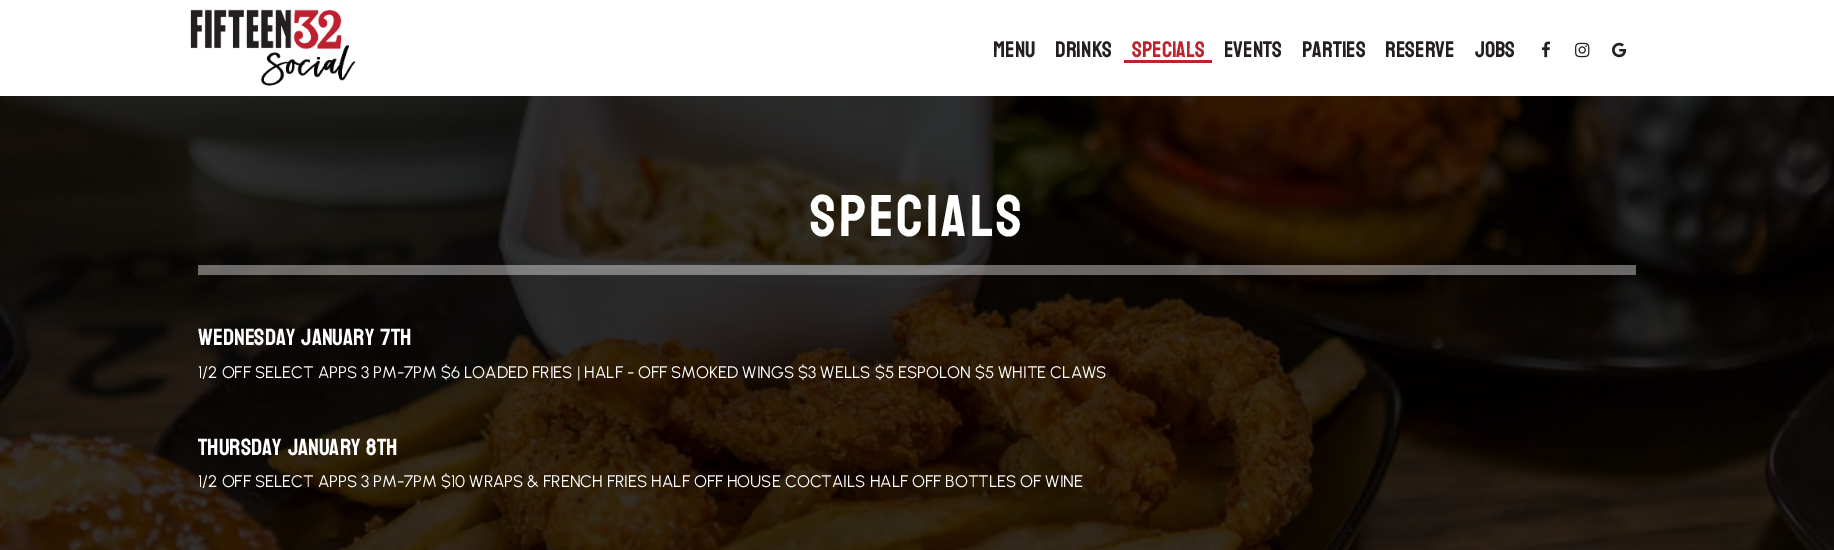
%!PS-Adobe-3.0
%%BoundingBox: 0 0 1834 550
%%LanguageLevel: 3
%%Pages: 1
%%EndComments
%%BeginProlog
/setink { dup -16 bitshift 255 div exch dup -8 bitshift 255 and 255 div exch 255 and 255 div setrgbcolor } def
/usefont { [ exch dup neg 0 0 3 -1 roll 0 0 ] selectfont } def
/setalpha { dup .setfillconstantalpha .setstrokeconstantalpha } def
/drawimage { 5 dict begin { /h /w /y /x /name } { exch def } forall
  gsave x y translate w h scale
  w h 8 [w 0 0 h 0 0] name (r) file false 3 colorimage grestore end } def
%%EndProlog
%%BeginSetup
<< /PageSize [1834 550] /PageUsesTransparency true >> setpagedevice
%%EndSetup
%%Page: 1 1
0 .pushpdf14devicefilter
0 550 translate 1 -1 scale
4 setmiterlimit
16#FFFFFF setink
0 0 1834 550 rectfill
(img1.raw) 0 96 1834 454 drawimage
(img2.raw) 190 9 166 77 drawimage
/Koulen-Regular 22.5 usefont
16#242020 setink
993 57 moveto (MENU) show
1055 57 moveto (DRINKS) show
16#BC242C setink
1132 57 moveto (SPECIALS) show
1124 60 88 3 rectfill
16#242020 setink
[
    [(EVENTS) 1224 57]
    [(PARTIES) 1302 57]
    [(RESERVE) 1385 57]
    [(JOBS) 1475 57]
] { aload pop moveto show } forall
(img3.raw) 1541 41 9 17 drawimage
(img4.raw) 1575 42 15 16 drawimage
(img5.raw) 1612 42 15 16 drawimage
0.4 setalpha
16#FFFFFF setink
198 265 1438 10 rectfill
/Koulen-Regular 59 usefont
1 setalpha
810 236 moveto 3 0 (SPECIALS) ashow
/Koulen-Regular 23.5 usefont
198 345 moveto (WEDNESDAY JANUARY 7TH) show
/Urbanist-Regular 16.8 usefont
198 378 moveto (1/2 OFF SELECT APPS 3 PM-7PM $6 LOADED FRIES | HALF - OFF SMOKED WINGS $3 WELLS $5 ESPOLON $5 WHITE CLAWS) show
/Koulen-Regular 23.5 usefont
198 455 moveto (THURSDAY JANUARY 8TH) show
/Urbanist-Regular 16.8 usefont
198 487 moveto (1/2 OFF SELECT APPS 3 PM-7PM $10 WRAPS & FRENCH FRIES HALF OFF HOUSE COCTAILS HALF OFF BOTTLES OF WINE) show
.poppdf14devicefilter showpage
%%EOF
